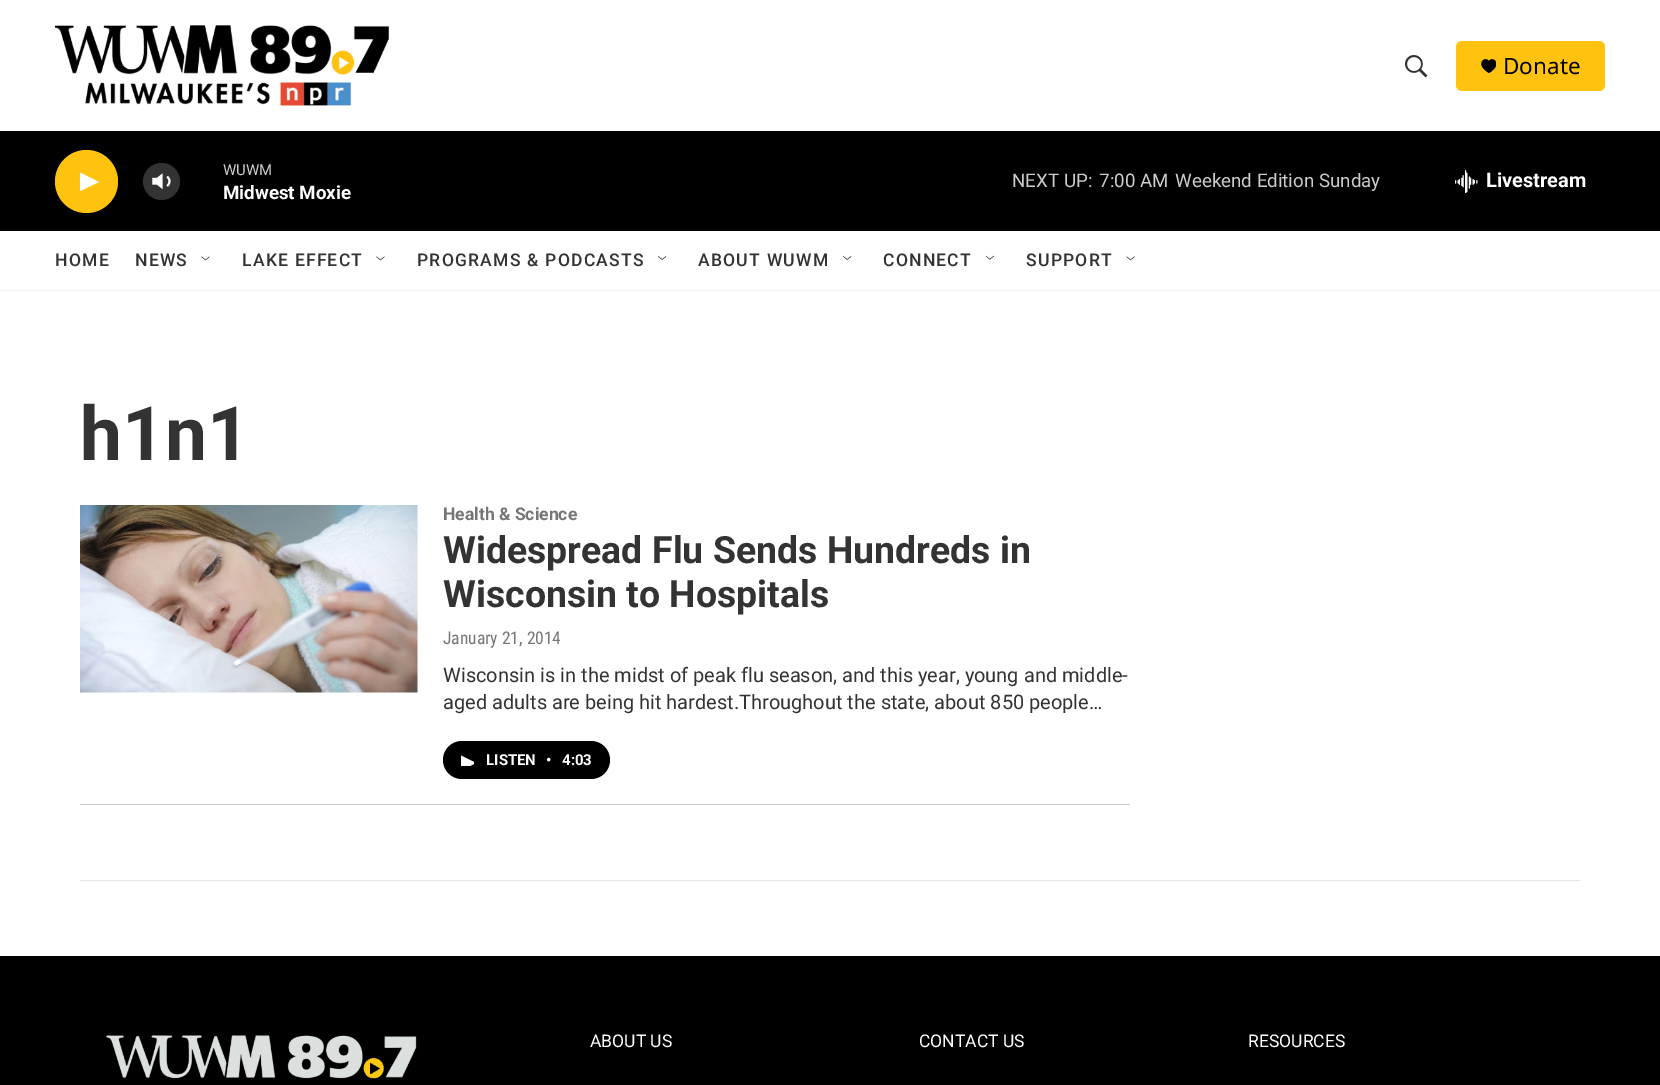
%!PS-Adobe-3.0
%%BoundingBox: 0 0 1660 1085
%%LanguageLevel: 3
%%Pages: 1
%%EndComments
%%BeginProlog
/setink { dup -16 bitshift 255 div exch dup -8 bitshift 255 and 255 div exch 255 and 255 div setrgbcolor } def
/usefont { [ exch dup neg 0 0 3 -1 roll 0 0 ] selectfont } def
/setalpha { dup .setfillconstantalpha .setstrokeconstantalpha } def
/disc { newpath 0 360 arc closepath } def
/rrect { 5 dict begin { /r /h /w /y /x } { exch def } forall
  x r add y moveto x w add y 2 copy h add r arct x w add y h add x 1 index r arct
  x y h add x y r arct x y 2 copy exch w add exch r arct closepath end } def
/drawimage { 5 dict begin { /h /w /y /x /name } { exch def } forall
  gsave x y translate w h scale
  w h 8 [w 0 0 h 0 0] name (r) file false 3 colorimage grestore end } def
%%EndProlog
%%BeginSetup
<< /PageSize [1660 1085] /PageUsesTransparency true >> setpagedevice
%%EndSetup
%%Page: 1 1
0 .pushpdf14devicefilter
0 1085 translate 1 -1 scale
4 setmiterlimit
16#FFFFFF setink
0 0 1660 1085 rectfill
16#F5F5F5 setink
0 290 1660 1 rectfill
(img1.raw) 55 25 334 81 drawimage
(img2.raw) 1405 55 23 23 drawimage
16#FFC20E setink
1456 41 149 50 6 rrect fill
gsave
1481 59 15 15 rectclip
16#000000 setink
1489 61.5 moveto 1486.5 55 1473 63.5 1489 73 curveto 1504.5 63.5 1491 55 1489 61.5 curveto closepath fill
grestore
/NotoSans-Regular 22.5 usefont
16#000000 setink
1503 74 moveto (Donate) show
0 131 1660 100 rectfill
16#FFC20E setink
86.5 181.5 31.5 disc fill
16#FFFFFF setink
80 172.5 moveto 99 182 lineto 80 191 lineto closepath fill
(img3.raw) 152 173 19 17 drawimage
0.2 setalpha
161.5 181.5 18.5 disc fill
/Roboto-Regular 15 usefont
1 setalpha
16#CCCCCC setink
223 175 moveto (WUWM) show
/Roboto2-Bold 18.75 usefont
16#FFFFFF setink
223 199 moveto (Midwest Moxie) show
/Roboto-Regular 18.75 usefont
16#CCCCCC setink
[
    [(NEXT UP:) 1012 187]
    [(7:00 AM) 1099 187]
    [(Weekend Edition Sunday) 1175 187]
] { aload pop moveto show } forall
(img4.raw) 1455 170 23 23 drawimage
/Roboto2-Bold 20 usefont
16#FFFFFF setink
1486 187 moveto (Livestream) show
/Roboto-Medium 17.5 usefont
16#333333 setink
55 266 moveto 1.25 0 (HOME) ashow
135 266 moveto 1.25 0 (NEWS) ashow
(img5.raw) 201 256 9 5 drawimage
242 266 moveto 1.25 0 (LAKE EFFECT) ashow
(img5.raw) 376 256 9 5 drawimage
417 266 moveto 1.25 0 (PROGRAMS & PODCASTS) ashow
(img6.raw) 658 256 9 4 drawimage
698 266 moveto 1.25 0 (ABOUT WUWM) ashow
(img6.raw) 843 256 9 4 drawimage
883 266 moveto 1.25 0 (CONNECT) ashow
(img7.raw) 985 255 9 5 drawimage
1026 266 moveto 1.25 0 (SUPPORT) ashow
(img8.raw) 1126 256 9 5 drawimage
/Roboto-Bold 75 usefont
80 460 moveto (h1n1) show
16#CCCCCC setink
80 804 1050 1 rectfill
(img9.raw) 80 505 338 188 drawimage
/Roboto-Bold 17.5 usefont
16#767676 setink
443 520 moveto (Health & Science) show
/Roboto-Bold 37.5 usefont
16#333333 setink
443 563 moveto (Widespread Flu Sends Hundreds in) show
443 607 moveto (Wisconsin to Hospitals) show
/RobotoCondensed-Regular 17.5 usefont
16#767676 setink
443 644 moveto (January 21, 2014) show
/Roboto-Regular 20 usefont
16#333333 setink
443 682 moveto (Wisconsin is in the midst of peak flu season, and this year, young and middle-) show
443 709 moveto (aged adults are being hit hardest.Throughout the state, about 850 people…) show
16#000000 setink
443 741 167 38 19 rrect fill
gsave
461 754 13 12 rectclip
16#FFFFFF setink
461 755.5 moveto 476 763 lineto 461 770.5 lineto closepath fill
grestore
/Roboto2-Bold 15 usefont
16#FFFFFF setink
[
    [(LISTEN) 486 765]
    [(•) 546 765]
    [(4:03) 562 765]
] { aload pop moveto show } forall
16#E6E6E6 setink
80 880 1500 1 rectfill
16#000000 setink
0 956 1660 129 rectfill
(img10.raw) 106 1035 311 44 drawimage
/Roboto-Regular 17.5 usefont
16#FFFFFF setink
[
    [(ABOUT US) 590 1047]
    [(CONTACT US) 919 1047]
    [(RESOURCES) 1248 1047]
] { aload pop moveto show } forall
.poppdf14devicefilter showpage
%%EOF
